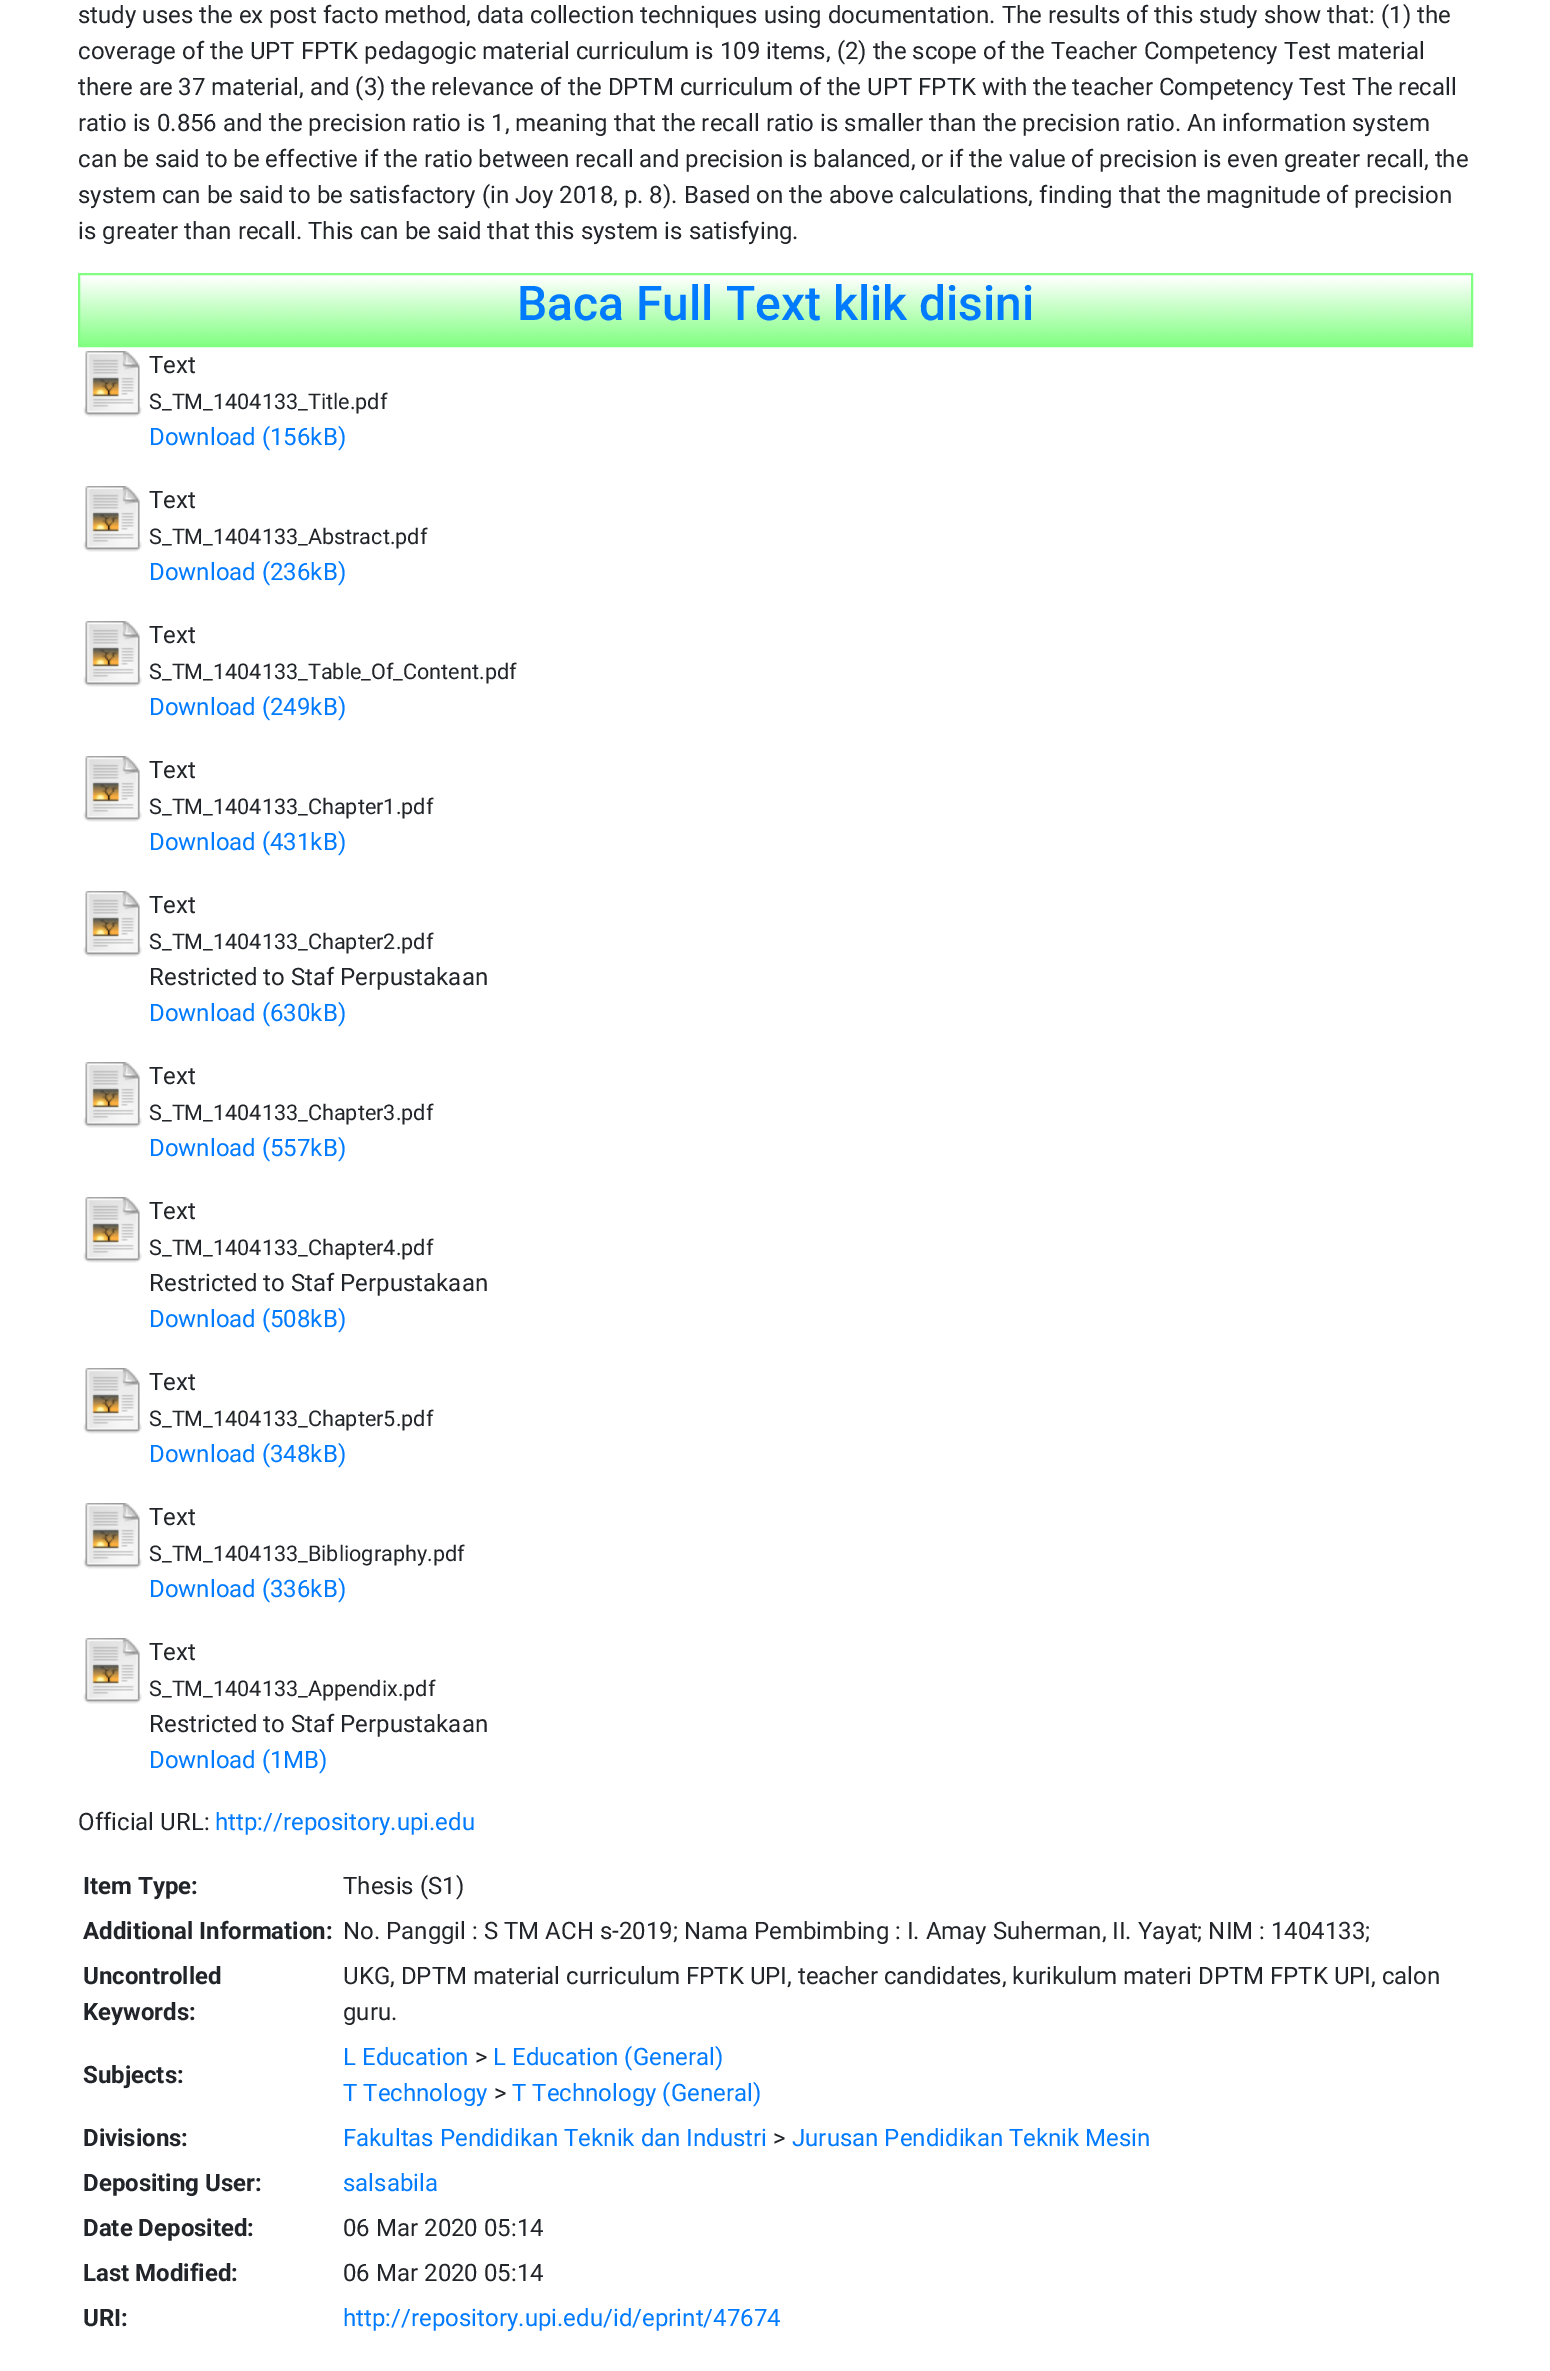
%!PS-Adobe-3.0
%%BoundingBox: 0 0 1550 2371
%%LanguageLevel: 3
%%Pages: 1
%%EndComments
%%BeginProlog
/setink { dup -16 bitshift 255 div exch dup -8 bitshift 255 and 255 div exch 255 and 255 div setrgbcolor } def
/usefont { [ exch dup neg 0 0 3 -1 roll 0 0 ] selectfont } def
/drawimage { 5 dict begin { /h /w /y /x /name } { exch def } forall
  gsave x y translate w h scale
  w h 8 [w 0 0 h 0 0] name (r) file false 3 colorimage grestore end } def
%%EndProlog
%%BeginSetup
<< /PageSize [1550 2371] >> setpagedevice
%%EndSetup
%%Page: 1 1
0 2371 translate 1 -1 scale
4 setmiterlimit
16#FFFFFF setink
0 0 1550 2371 rectfill
/Roboto-Regular 24 usefont
16#212529 setink
[
    [(study uses the ex post facto method, data collection techniques using documentation. The results of this study show that: \(1\) the) 78 23]
    [(coverage of the UPT FPTK pedagogic material curriculum is 109 items, \(2\) the scope of the Teacher Competency Test material) 78 59]
    [(there are 37 material, and \(3\) the relevance of the DPTM curriculum of the UPT FPTK with the teacher Competency Test The recall) 78 95]
    [(ratio is 0.856 and the precision ratio is 1, meaning that the recall ratio is smaller than the precision ratio. An information system) 78 131]
    [(can be said to be effective if the ratio between recall and precision is balanced, or if the value of precision is even greater recall, the) 78 167]
    [(system can be said to be satisfactory \(in Joy 2018, p. 8\). Based on the above calculations, finding that the magnitude of precision) 78 203]
    [(is greater than recall. This can be said that this system is satisfying.) 78 239]
] { aload pop moveto show } forall
16#80FF80 setink
80 276 1391 69 rectfill
(img1.raw) 80 275 1391 69 drawimage
2 setlinewidth
79 274 1393 72 rectstroke
/Roboto-Medium 48 usefont
16#007BFF setink
517 320 moveto (Baca Full Text klik disini) show
(img2.raw) 83 351 59 66 drawimage
/Roboto-Regular 24 usefont
16#212529 setink
149 373 moveto (Text) show
/Roboto-Regular 21.6 usefont
149 409 moveto (S_TM_1404133_Title.pdf) show
/Roboto-Regular 24 usefont
16#007BFF setink
149 445 moveto (Download \(156kB\)) show
(img2.raw) 83 486 59 66 drawimage
16#212529 setink
149 508 moveto (Text) show
/Roboto-Regular 21.6 usefont
149 544 moveto (S_TM_1404133_Abstract.pdf) show
/Roboto-Regular 24 usefont
16#007BFF setink
149 580 moveto (Download \(236kB\)) show
(img2.raw) 83 621 59 66 drawimage
16#212529 setink
149 643 moveto (Text) show
/Roboto-Regular 21.6 usefont
149 679 moveto (S_TM_1404133_Table_Of_Content.pdf) show
/Roboto-Regular 24 usefont
16#007BFF setink
149 715 moveto (Download \(249kB\)) show
(img2.raw) 83 756 59 66 drawimage
16#212529 setink
149 778 moveto (Text) show
/Roboto-Regular 21.6 usefont
149 814 moveto (S_TM_1404133_Chapter1.pdf) show
/Roboto-Regular 24 usefont
16#007BFF setink
149 850 moveto (Download \(431kB\)) show
(img2.raw) 83 891 59 66 drawimage
16#212529 setink
149 913 moveto (Text) show
/Roboto-Regular 21.6 usefont
149 949 moveto (S_TM_1404133_Chapter2.pdf) show
/Roboto-Regular 24 usefont
149 985 moveto (Restricted to Staf Perpustakaan) show
16#007BFF setink
149 1021 moveto (Download \(630kB\)) show
(img2.raw) 83 1062 59 66 drawimage
16#212529 setink
149 1084 moveto (Text) show
/Roboto-Regular 21.6 usefont
149 1120 moveto (S_TM_1404133_Chapter3.pdf) show
/Roboto-Regular 24 usefont
16#007BFF setink
149 1156 moveto (Download \(557kB\)) show
(img2.raw) 83 1197 59 66 drawimage
16#212529 setink
149 1219 moveto (Text) show
/Roboto-Regular 21.6 usefont
149 1255 moveto (S_TM_1404133_Chapter4.pdf) show
/Roboto-Regular 24 usefont
149 1291 moveto (Restricted to Staf Perpustakaan) show
16#007BFF setink
149 1327 moveto (Download \(508kB\)) show
(img2.raw) 83 1368 59 66 drawimage
16#212529 setink
149 1390 moveto (Text) show
/Roboto-Regular 21.6 usefont
149 1426 moveto (S_TM_1404133_Chapter5.pdf) show
/Roboto-Regular 24 usefont
16#007BFF setink
149 1462 moveto (Download \(348kB\)) show
(img2.raw) 83 1503 59 66 drawimage
16#212529 setink
149 1525 moveto (Text) show
/Roboto-Regular 21.6 usefont
149 1561 moveto (S_TM_1404133_Bibliography.pdf) show
/Roboto-Regular 24 usefont
16#007BFF setink
149 1597 moveto (Download \(336kB\)) show
(img2.raw) 83 1638 59 66 drawimage
16#212529 setink
149 1660 moveto (Text) show
/Roboto-Regular 21.6 usefont
149 1696 moveto (S_TM_1404133_Appendix.pdf) show
/Roboto-Regular 24 usefont
149 1732 moveto (Restricted to Staf Perpustakaan) show
16#007BFF setink
149 1768 moveto (Download \(1MB\)) show
16#212529 setink
78 1830 moveto (Official URL:) show
16#007BFF setink
215 1830 moveto (http://repository.upi.edu) show
/Roboto-Bold 24 usefont
16#212529 setink
83 1894 moveto (Item Type:) show
/Roboto-Regular 24 usefont
343 1894 moveto (Thesis \(S1\)) show
/Roboto-Bold 24 usefont
83 1939 moveto (Additional Information:) show
/Roboto-Regular 24 usefont
343 1939 moveto (No. Panggil : S TM ACH s-2019; Nama Pembimbing : I. Amay Suherman, II. Yayat; NIM : 1404133;) show
/Roboto-Bold 24 usefont
83 1984 moveto (Uncontrolled) show
83 2020 moveto (Keywords:) show
/Roboto-Regular 24 usefont
343 1984 moveto (UKG, DPTM material curriculum FPTK UPI, teacher candidates, kurikulum materi DPTM FPTK UPI, calon) show
343 2020 moveto (guru.) show
/Roboto-Bold 24 usefont
83 2083 moveto (Subjects:) show
/Roboto-Regular 24 usefont
16#007BFF setink
343 2065 moveto (L Education) show
16#212529 setink
475 2065 moveto (>) show
16#007BFF setink
493 2065 moveto (L Education \(General\)) show
343 2101 moveto (T Technology) show
16#212529 setink
494 2101 moveto (>) show
16#007BFF setink
512 2101 moveto (T Technology \(General\)) show
/Roboto-Bold 24 usefont
16#212529 setink
83 2146 moveto (Divisions:) show
/Roboto-Regular 24 usefont
16#007BFF setink
343 2146 moveto (Fakultas Pendidikan Teknik dan Industri) show
16#212529 setink
773 2146 moveto (>) show
16#007BFF setink
792 2146 moveto (Jurusan Pendidikan Teknik Mesin) show
/Roboto-Bold 24 usefont
16#212529 setink
83 2191 moveto (Depositing User:) show
/Roboto-Regular 24 usefont
16#007BFF setink
343 2191 moveto (salsabila) show
/Roboto-Bold 24 usefont
16#212529 setink
83 2236 moveto (Date Deposited:) show
/Roboto-Regular 24 usefont
343 2236 moveto (06 Mar 2020 05:14) show
/Roboto-Bold 24 usefont
83 2281 moveto (Last Modified:) show
/Roboto-Regular 24 usefont
343 2281 moveto (06 Mar 2020 05:14) show
/Roboto-Bold 24 usefont
83 2326 moveto (URI:) show
/Roboto-Regular 24 usefont
16#007BFF setink
343 2326 moveto (http://repository.upi.edu/id/eprint/47674) show
showpage
%%EOF
